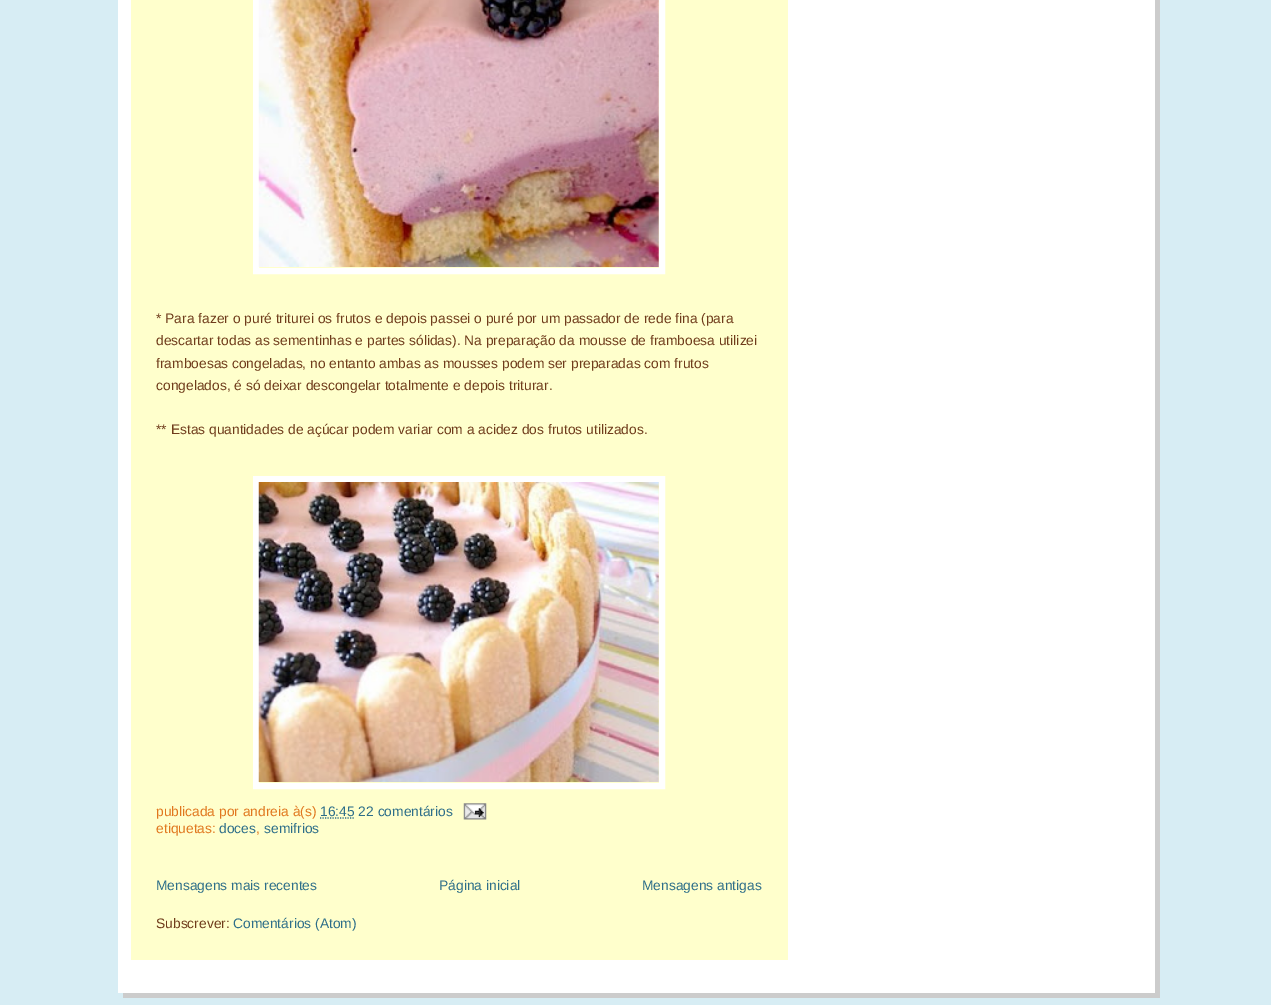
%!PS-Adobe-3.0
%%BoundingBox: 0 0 1271 1005
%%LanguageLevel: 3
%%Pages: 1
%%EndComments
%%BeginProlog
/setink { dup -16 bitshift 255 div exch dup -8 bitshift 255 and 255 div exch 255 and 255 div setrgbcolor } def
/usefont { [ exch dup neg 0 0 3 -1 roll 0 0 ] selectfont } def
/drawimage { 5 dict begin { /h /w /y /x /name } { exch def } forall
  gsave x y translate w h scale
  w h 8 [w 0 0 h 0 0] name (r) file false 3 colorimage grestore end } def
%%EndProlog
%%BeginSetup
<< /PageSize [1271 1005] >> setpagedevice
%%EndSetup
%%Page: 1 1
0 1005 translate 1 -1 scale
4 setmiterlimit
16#D7EDF4 setink
0 0 1271 1005 rectfill
[
    [123 0 1037 998 16#CCCCCC]
    [118 0 1037 993 16#FFFFFF]
    [131 0 657 960 16#FFFFCC]
] { aload pop setink rectfill } forall
16#FFFFFF setink
6 setlinewidth
256 -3 406 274 rectstroke
(img1.raw) 258 0 401 267 drawimage
/LiberationSans-Regular 13.8 usefont
16#6F3C1B setink
[
    [(* Para fazer o puré triturei os frutos e depois passei o puré por um passador de rede fina \(para) 156 323]
    [(descartar todas as sementinhas e partes sólidas\). Na preparação da mousse de framboesa utilizei) 156 345]
    [(framboesas congeladas, no entanto ambas as mousses podem ser preparadas com frutos) 156 368]
    [(congelados, é só deixar descongelar totalmente e depois triturar.) 156 390]
    [(** Estas quantidades de açúcar podem variar com a acidez dos frutos utilizados.) 156 434]
] { aload pop moveto show } forall
16#FFFFFF setink
256 479 406 307 rectstroke
(img2.raw) 258 482 401 300 drawimage
16#E1771E setink
156 816 moveto (publicada por andreia à\(s\)) show
16#2D6E89 setink
320 816 moveto (16:45 22 comentários) show
1.2 setlinewidth
[1.25 1.25] 0 setdash
320 818 moveto 354.5 818 lineto stroke
(img3.raw) 463 803 24 17 drawimage
16#E1771E setink
156 833 moveto (etiquetas:) show
16#2D6E89 setink
219 833 moveto (doces) show
16#E1771E setink
256 833 moveto (,) show
16#2D6E89 setink
[
    [(semifrios) 264 833]
    [(Mensagens mais recentes) 156 890]
    [(Página inicial) 439 890]
    [(Mensagens antigas) 642 890]
] { aload pop moveto show } forall
16#6F3C1B setink
156 928 moveto (Subscrever:) show
16#2D6E89 setink
233 928 moveto (Comentários \(Atom\)) show
showpage
%%EOF
